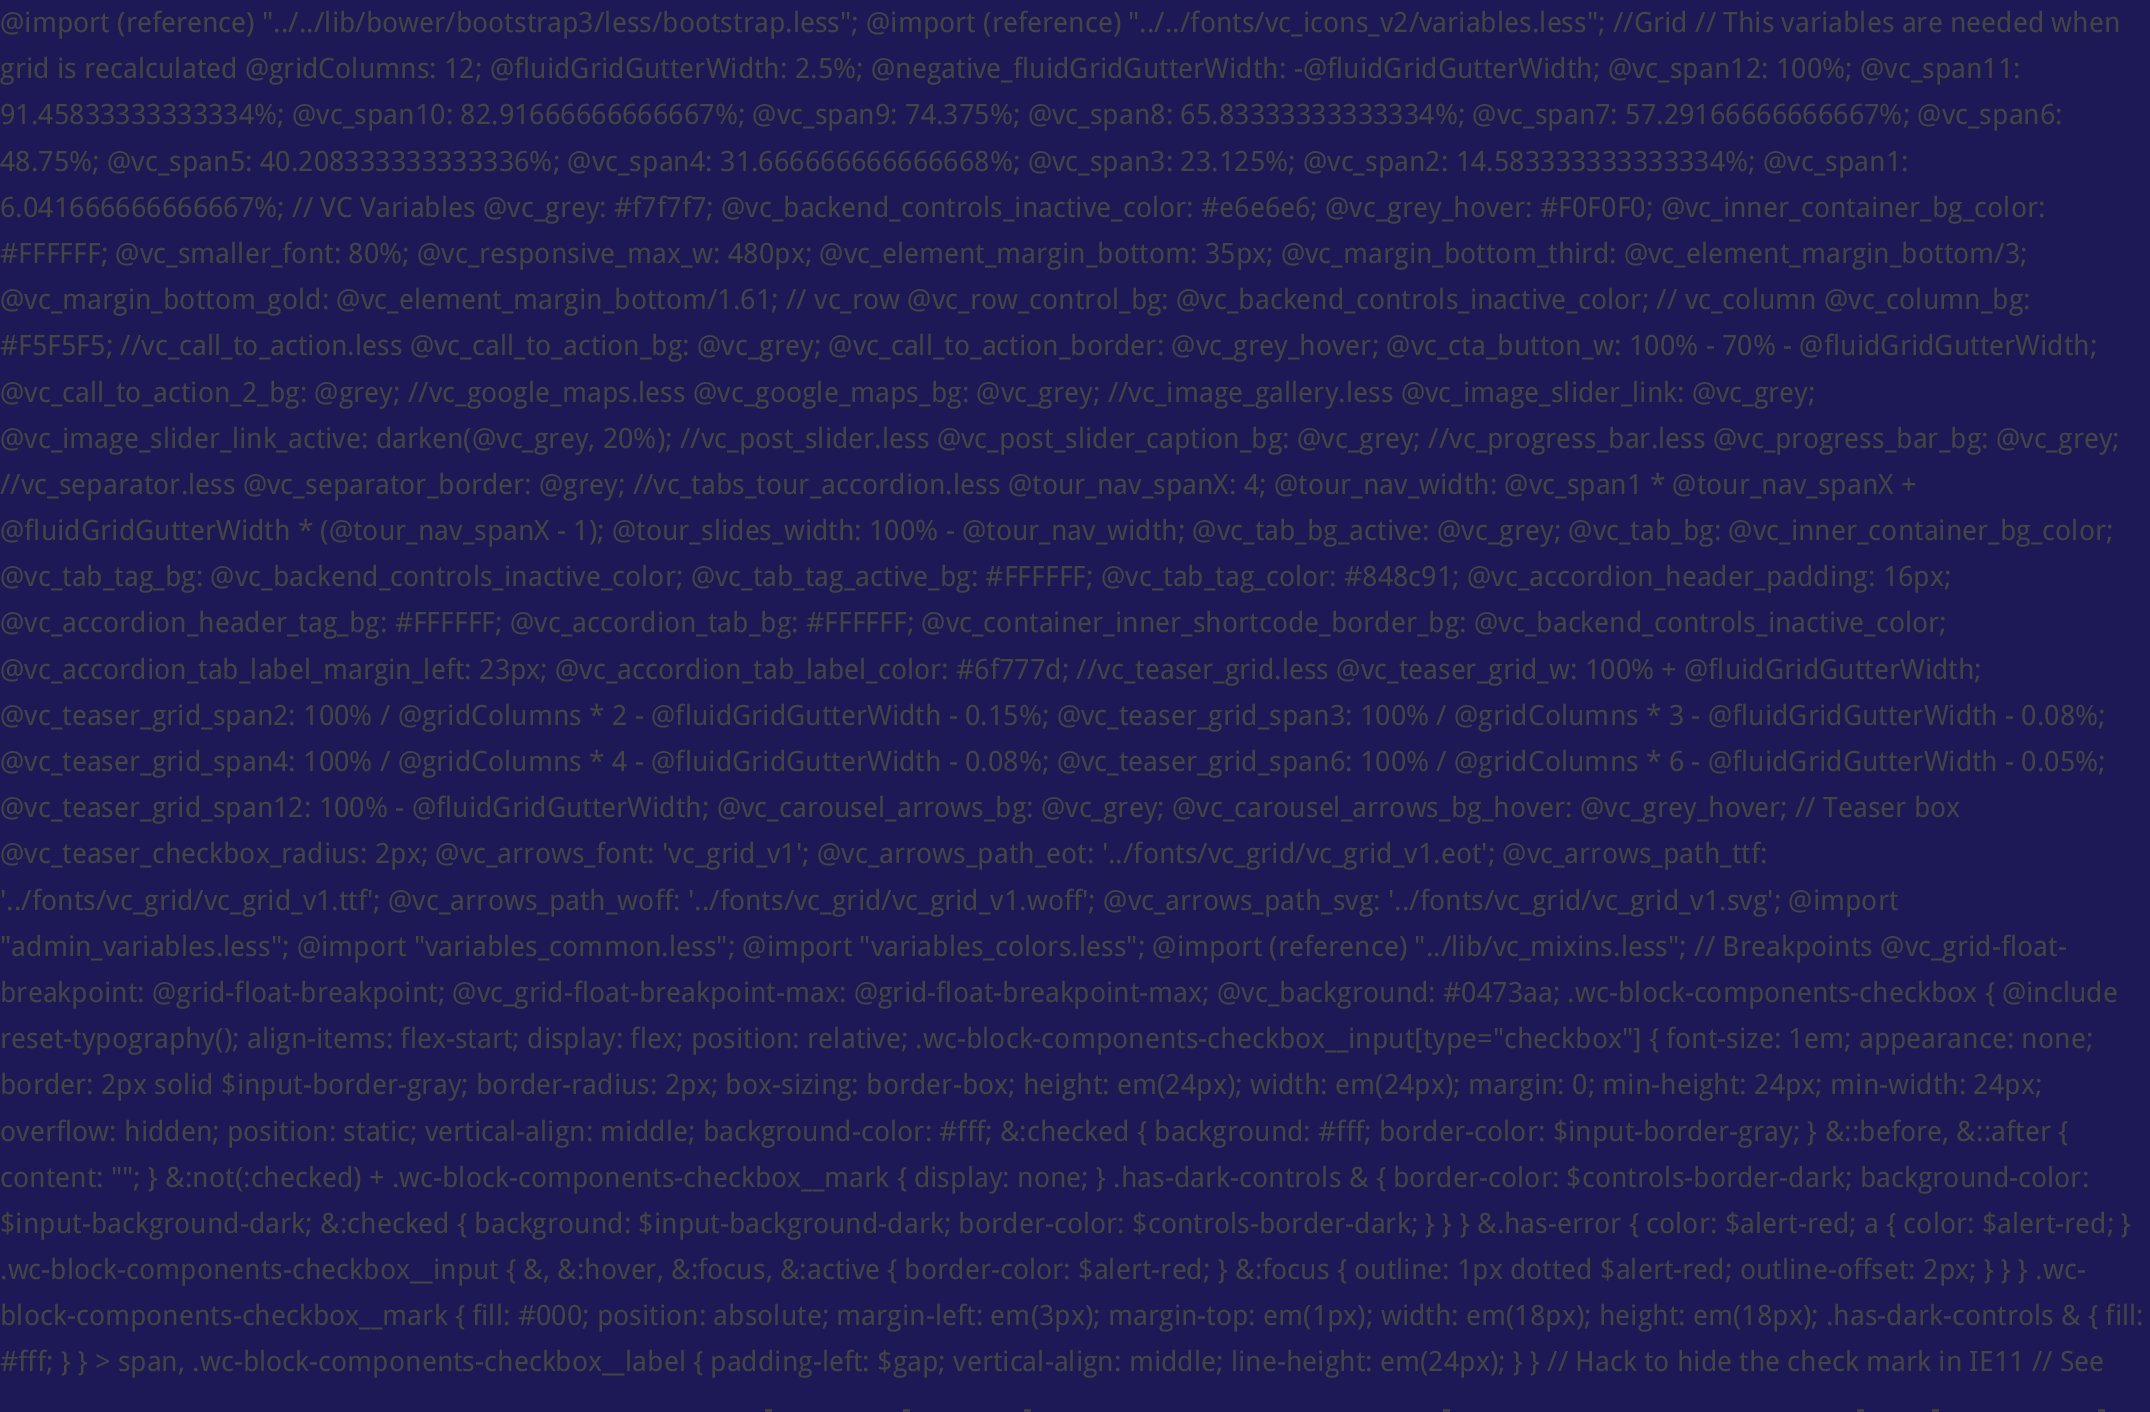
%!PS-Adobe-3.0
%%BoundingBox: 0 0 2150 1412
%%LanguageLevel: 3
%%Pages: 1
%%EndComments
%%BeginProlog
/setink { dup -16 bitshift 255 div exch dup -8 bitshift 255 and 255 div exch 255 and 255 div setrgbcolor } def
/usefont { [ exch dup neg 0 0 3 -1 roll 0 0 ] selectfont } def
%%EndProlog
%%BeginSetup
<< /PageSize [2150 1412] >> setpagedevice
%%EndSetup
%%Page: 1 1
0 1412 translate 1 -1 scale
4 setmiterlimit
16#1C1956 setink
0 0 2150 1412 rectfill
/DroidSans-Regular 28 usefont
16#444444 setink
[
    [(@import \(reference\) "../../lib/bower/bootstrap3/less/bootstrap.less"; @import \(reference\) "../../fonts/vc_icons_v2/variables.less"; //Grid // This variables are needed when) 0 32]
    [(grid is recalculated @gridColumns: 12; @fluidGridGutterWidth: 2.5%; @negative_fluidGridGutterWidth: -@fluidGridGutterWidth; @vc_span12: 100%; @vc_span11:) 0 78]
    [(91.45833333333334%; @vc_span10: 82.91666666666667%; @vc_span9: 74.375%; @vc_span8: 65.83333333333334%; @vc_span7: 57.29166666666667%; @vc_span6:) 0 124]
    [(48.75%; @vc_span5: 40.208333333333336%; @vc_span4: 31.666666666666668%; @vc_span3: 23.125%; @vc_span2: 14.583333333333334%; @vc_span1:) 0 171]
    [(6.041666666666667%; // VC Variables @vc_grey: #f7f7f7; @vc_backend_controls_inactive_color: #e6e6e6; @vc_grey_hover: #F0F0F0; @vc_inner_container_bg_color:) 0 217]
    [(#FFFFFF; @vc_smaller_font: 80%; @vc_responsive_max_w: 480px; @vc_element_margin_bottom: 35px; @vc_margin_bottom_third: @vc_element_margin_bottom/3;) 0 263]
    [(@vc_margin_bottom_gold: @vc_element_margin_bottom/1.61; // vc_row @vc_row_control_bg: @vc_backend_controls_inactive_color; // vc_column @vc_column_bg:) 0 309]
    [(#F5F5F5; //vc_call_to_action.less @vc_call_to_action_bg: @vc_grey; @vc_call_to_action_border: @vc_grey_hover; @vc_cta_button_w: 100% - 70% - @fluidGridGutterWidth;) 0 355]
    [(@vc_call_to_action_2_bg: @grey; //vc_google_maps.less @vc_google_maps_bg: @vc_grey; //vc_image_gallery.less @vc_image_slider_link: @vc_grey;) 0 402]
    [(@vc_image_slider_link_active: darken\(@vc_grey, 20%\); //vc_post_slider.less @vc_post_slider_caption_bg: @vc_grey; //vc_progress_bar.less @vc_progress_bar_bg: @vc_grey;) 0 448]
    [(//vc_separator.less @vc_separator_border: @grey; //vc_tabs_tour_accordion.less @tour_nav_spanX: 4; @tour_nav_width: @vc_span1 * @tour_nav_spanX +) 0 494]
    [(@fluidGridGutterWidth * \(@tour_nav_spanX - 1\); @tour_slides_width: 100% - @tour_nav_width; @vc_tab_bg_active: @vc_grey; @vc_tab_bg: @vc_inner_container_bg_color;) 0 540]
    [(@vc_tab_tag_bg: @vc_backend_controls_inactive_color; @vc_tab_tag_active_bg: #FFFFFF; @vc_tab_tag_color: #848c91; @vc_accordion_header_padding: 16px;) 0 586]
    [(@vc_accordion_header_tag_bg: #FFFFFF; @vc_accordion_tab_bg: #FFFFFF; @vc_container_inner_shortcode_border_bg: @vc_backend_controls_inactive_color;) 0 632]
    [(@vc_accordion_tab_label_margin_left: 23px; @vc_accordion_tab_label_color: #6f777d; //vc_teaser_grid.less @vc_teaser_grid_w: 100% + @fluidGridGutterWidth;) 0 679]
    [(@vc_teaser_grid_span2: 100% / @gridColumns * 2 - @fluidGridGutterWidth - 0.15%; @vc_teaser_grid_span3: 100% / @gridColumns * 3 - @fluidGridGutterWidth - 0.08%;) 0 725]
    [(@vc_teaser_grid_span4: 100% / @gridColumns * 4 - @fluidGridGutterWidth - 0.08%; @vc_teaser_grid_span6: 100% / @gridColumns * 6 - @fluidGridGutterWidth - 0.05%;) 0 771]
    [(@vc_teaser_grid_span12: 100% - @fluidGridGutterWidth; @vc_carousel_arrows_bg: @vc_grey; @vc_carousel_arrows_bg_hover: @vc_grey_hover; // Teaser box) 0 817]
    [(@vc_teaser_checkbox_radius: 2px; @vc_arrows_font: 'vc_grid_v1'; @vc_arrows_path_eot: '../fonts/vc_grid/vc_grid_v1.eot'; @vc_arrows_path_ttf:) 0 863]
    [('../fonts/vc_grid/vc_grid_v1.ttf'; @vc_arrows_path_woff: '../fonts/vc_grid/vc_grid_v1.woff'; @vc_arrows_path_svg: '../fonts/vc_grid/vc_grid_v1.svg'; @import) 0 910]
    [("admin_variables.less"; @import "variables_common.less"; @import "variables_colors.less"; @import \(reference\) "../lib/vc_mixins.less"; // Breakpoints @vc_grid-float-) 0 956]
    [(breakpoint: @grid-float-breakpoint; @vc_grid-float-breakpoint-max: @grid-float-breakpoint-max; @vc_background: #0473aa; .wc-block-components-checkbox { @include) 0 1002]
    [(reset-typography\(\); align-items: flex-start; display: flex; position: relative; .wc-block-components-checkbox__input[type="checkbox"] { font-size: 1em; appearance: none;) 0 1048]
    [(border: 2px solid $input-border-gray; border-radius: 2px; box-sizing: border-box; height: em\(24px\); width: em\(24px\); margin: 0; min-height: 24px; min-width: 24px;) 0 1094]
    [(overflow: hidden; position: static; vertical-align: middle; background-color: #fff; &:checked { background: #fff; border-color: $input-border-gray; } &::before, &::after {) 0 1141]
    [(content: ""; } &:not\(:checked\) + .wc-block-components-checkbox__mark { display: none; } .has-dark-controls & { border-color: $controls-border-dark; background-color:) 0 1187]
    [($input-background-dark; &:checked { background: $input-background-dark; border-color: $controls-border-dark; } } } &.has-error { color: $alert-red; a { color: $alert-red; }) 0 1233]
    [(.wc-block-components-checkbox__input { &, &:hover, &:focus, &:active { border-color: $alert-red; } &:focus { outline: 1px dotted $alert-red; outline-offset: 2px; } } } .wc-) 0 1279]
    [(block-components-checkbox__mark { fill: #000; position: absolute; margin-left: em\(3px\); margin-top: em\(1px\); width: em\(18px\); height: em\(18px\); .has-dark-controls & { fill:) 0 1325]
    [(#fff; } } > span, .wc-block-components-checkbox__label { padding-left: $gap; vertical-align: middle; line-height: em\(24px\); } } // Hack to hide the check mark in IE11 // See) 0 1371]
    [(-) 764 1418]
    [(-) 902 1418]
    [(-) 1023 1418]
    [(-) 1442 1418]
    [(-) 1856 1418]
    [(-) 1931 1418]
    [(-) 2097 1418]
] { aload pop moveto show } forall
showpage
%%EOF
